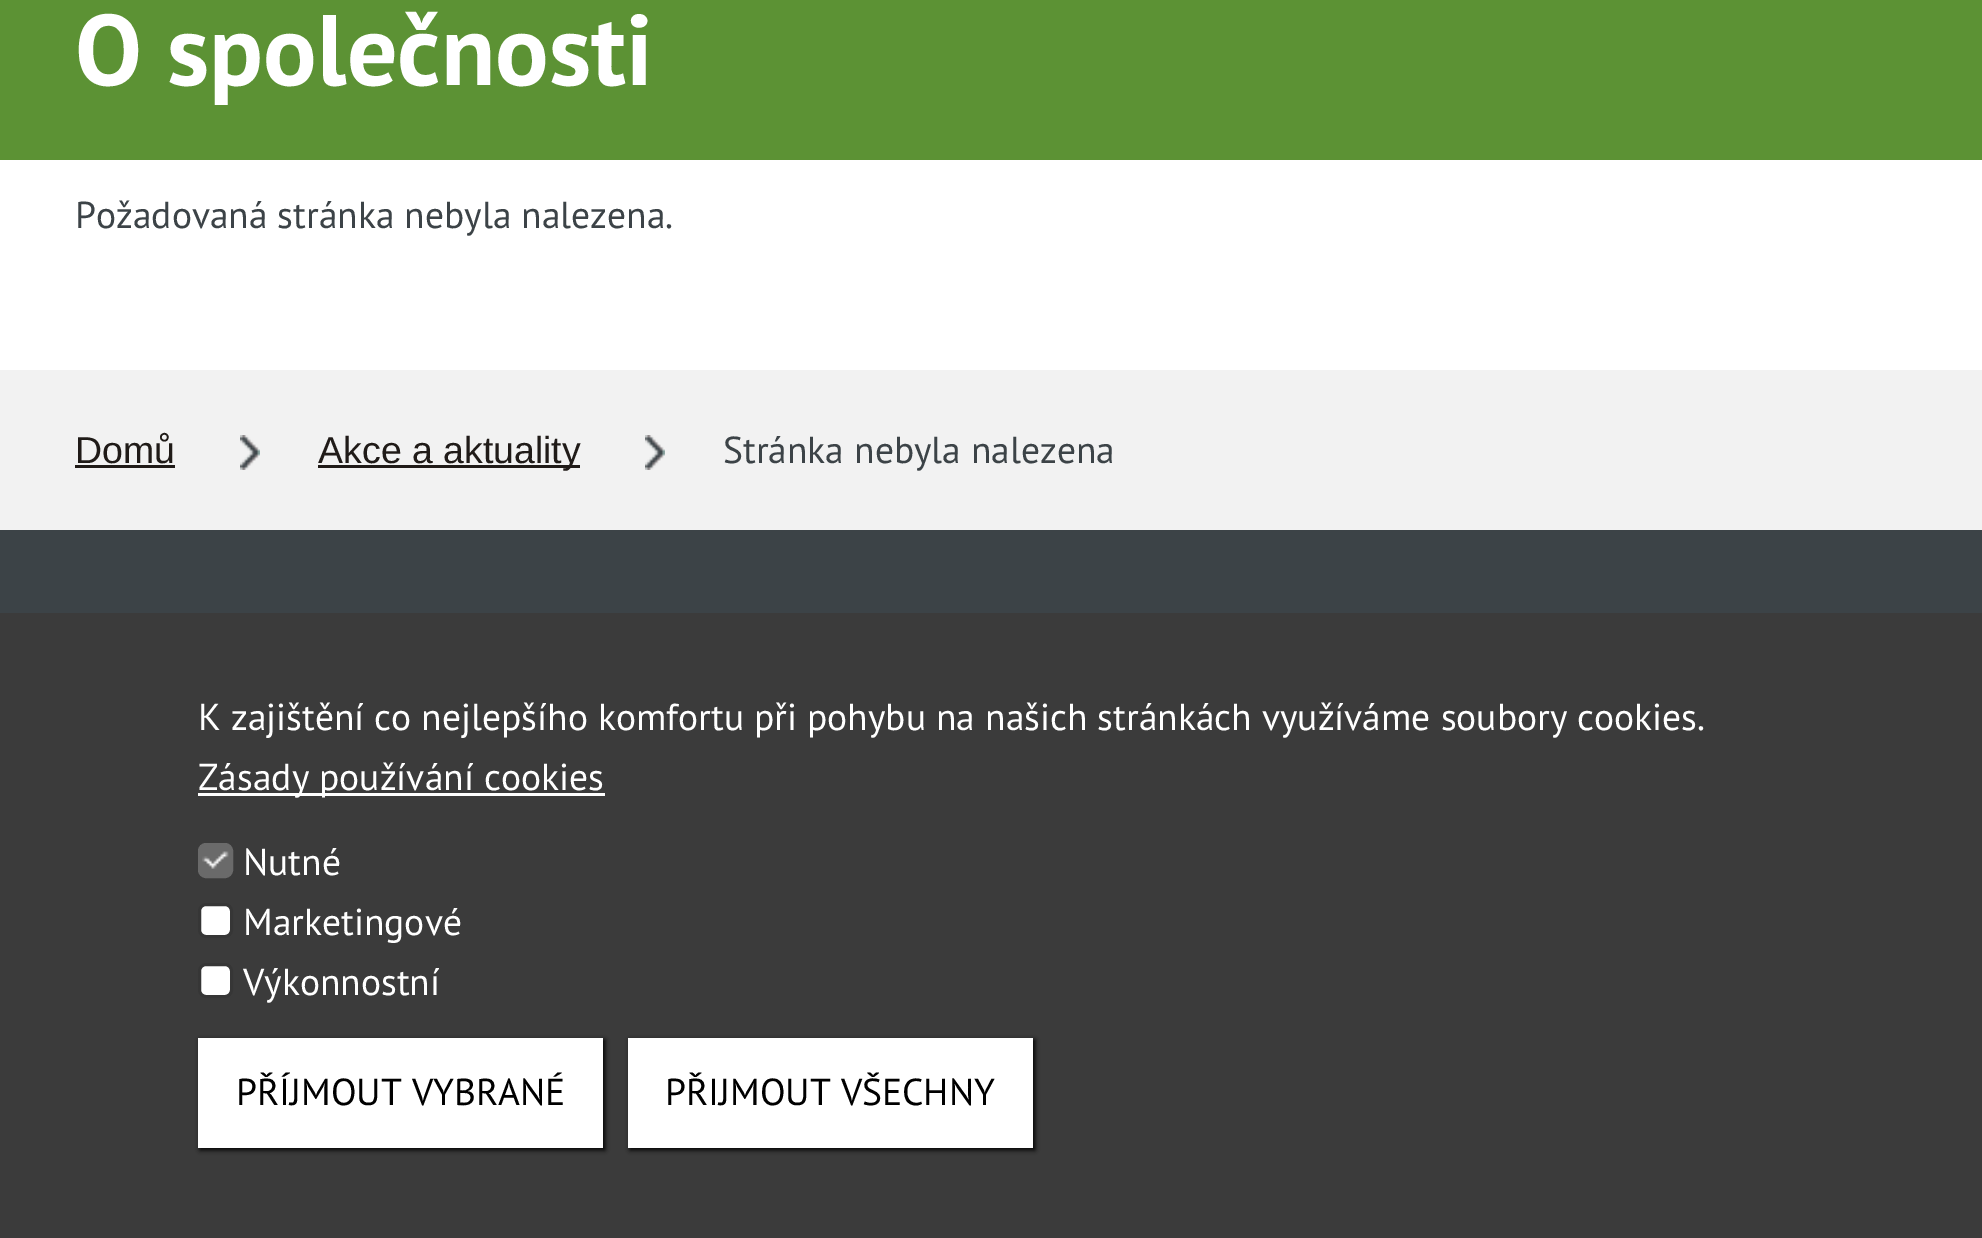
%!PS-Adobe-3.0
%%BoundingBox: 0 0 1982 1238
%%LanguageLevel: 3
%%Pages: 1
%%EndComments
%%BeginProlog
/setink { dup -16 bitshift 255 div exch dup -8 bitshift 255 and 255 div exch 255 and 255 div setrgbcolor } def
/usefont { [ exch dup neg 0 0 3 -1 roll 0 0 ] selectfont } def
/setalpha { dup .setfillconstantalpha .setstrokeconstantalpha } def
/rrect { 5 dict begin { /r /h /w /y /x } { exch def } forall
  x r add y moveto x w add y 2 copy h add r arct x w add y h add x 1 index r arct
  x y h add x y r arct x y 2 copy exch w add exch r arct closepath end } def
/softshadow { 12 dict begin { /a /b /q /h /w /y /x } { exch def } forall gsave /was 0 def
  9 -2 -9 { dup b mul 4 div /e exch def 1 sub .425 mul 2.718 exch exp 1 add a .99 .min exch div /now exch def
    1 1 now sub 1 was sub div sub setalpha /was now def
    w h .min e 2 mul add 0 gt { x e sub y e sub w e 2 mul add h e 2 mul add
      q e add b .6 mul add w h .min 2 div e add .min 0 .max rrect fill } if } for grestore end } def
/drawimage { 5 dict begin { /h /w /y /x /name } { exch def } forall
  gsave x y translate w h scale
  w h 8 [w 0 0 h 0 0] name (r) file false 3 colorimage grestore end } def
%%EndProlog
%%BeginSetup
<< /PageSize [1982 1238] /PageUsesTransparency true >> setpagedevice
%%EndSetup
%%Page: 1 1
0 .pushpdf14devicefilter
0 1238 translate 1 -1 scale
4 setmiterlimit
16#FFFFFF setink
0 0 1982 1238 rectfill
16#5C9234 setink
0 0 1982 160 rectfill
/PTSans-Bold 100 usefont
16#FFFFFF setink
75 85 moveto (O společnosti) show
/PTSans-Regular 37.5 usefont
16#3C4347 setink
75 228 moveto (Požadovaná stránka nebyla nalezena.) show
16#F2F2F2 setink
0 370 1982 160 rectfill
/LiberationSans-Regular 37.5 usefont
16#201B18 setink
75 463 moveto (Domů) show
75 465 100 3 rectfill
(img1.raw) 240 435 20 35 drawimage
318 465 262 3 rectfill
318 463 moveto (Akce a aktuality) show
(img2.raw) 645 435 20 35 drawimage
/PTSans-Regular 37.5 usefont
16#3C4347 setink
723 463 moveto (Stránka nebyla nalezena) show
0 530 1982 83 rectfill
16#3B3B3B setink
0 613 1982 625 rectfill
16#FFFFFF setink
198 730 moveto (K zajištění co nejlepšího komfortu při pohybu na našich stránkách využíváme soubory cookies.) show
198 793 407 3 rectfill
198 790 moveto (Zásady používání cookies) show
16#6A6A6A setink
3 setlinewidth
199.5 844.5 32 32 6.5 rrect stroke
200 845 30 30 rectfill
(img3.raw) 202 851 27 18 drawimage
16#FFFFFF setink
243 875 moveto (Nutné) show
199.5 904.5 32 32 6.5 rrect gsave fill grestore
16#363636 setink
stroke
16#FFFFFF setink
243 935 moveto (Marketingové) show
199.5 964.5 32 32 6.5 rrect gsave fill grestore
16#363636 setink
stroke
16#FFFFFF setink
243 995 moveto (Výkonnostní) show
16#000000 setink
200 1040 405 110 0 2.5 1 softshadow
16#FFFFFF setink
198 1038 405 110 rectfill
16#000000 setink
236 1105 moveto (PŘÍJMOUT VYBRANÉ) show
630 1040 405 110 0 2.5 1 softshadow
16#FFFFFF setink
628 1038 405 110 rectfill
16#000000 setink
665 1105 moveto (PŘIJMOUT VŠECHNY) show
.poppdf14devicefilter showpage
%%EOF
